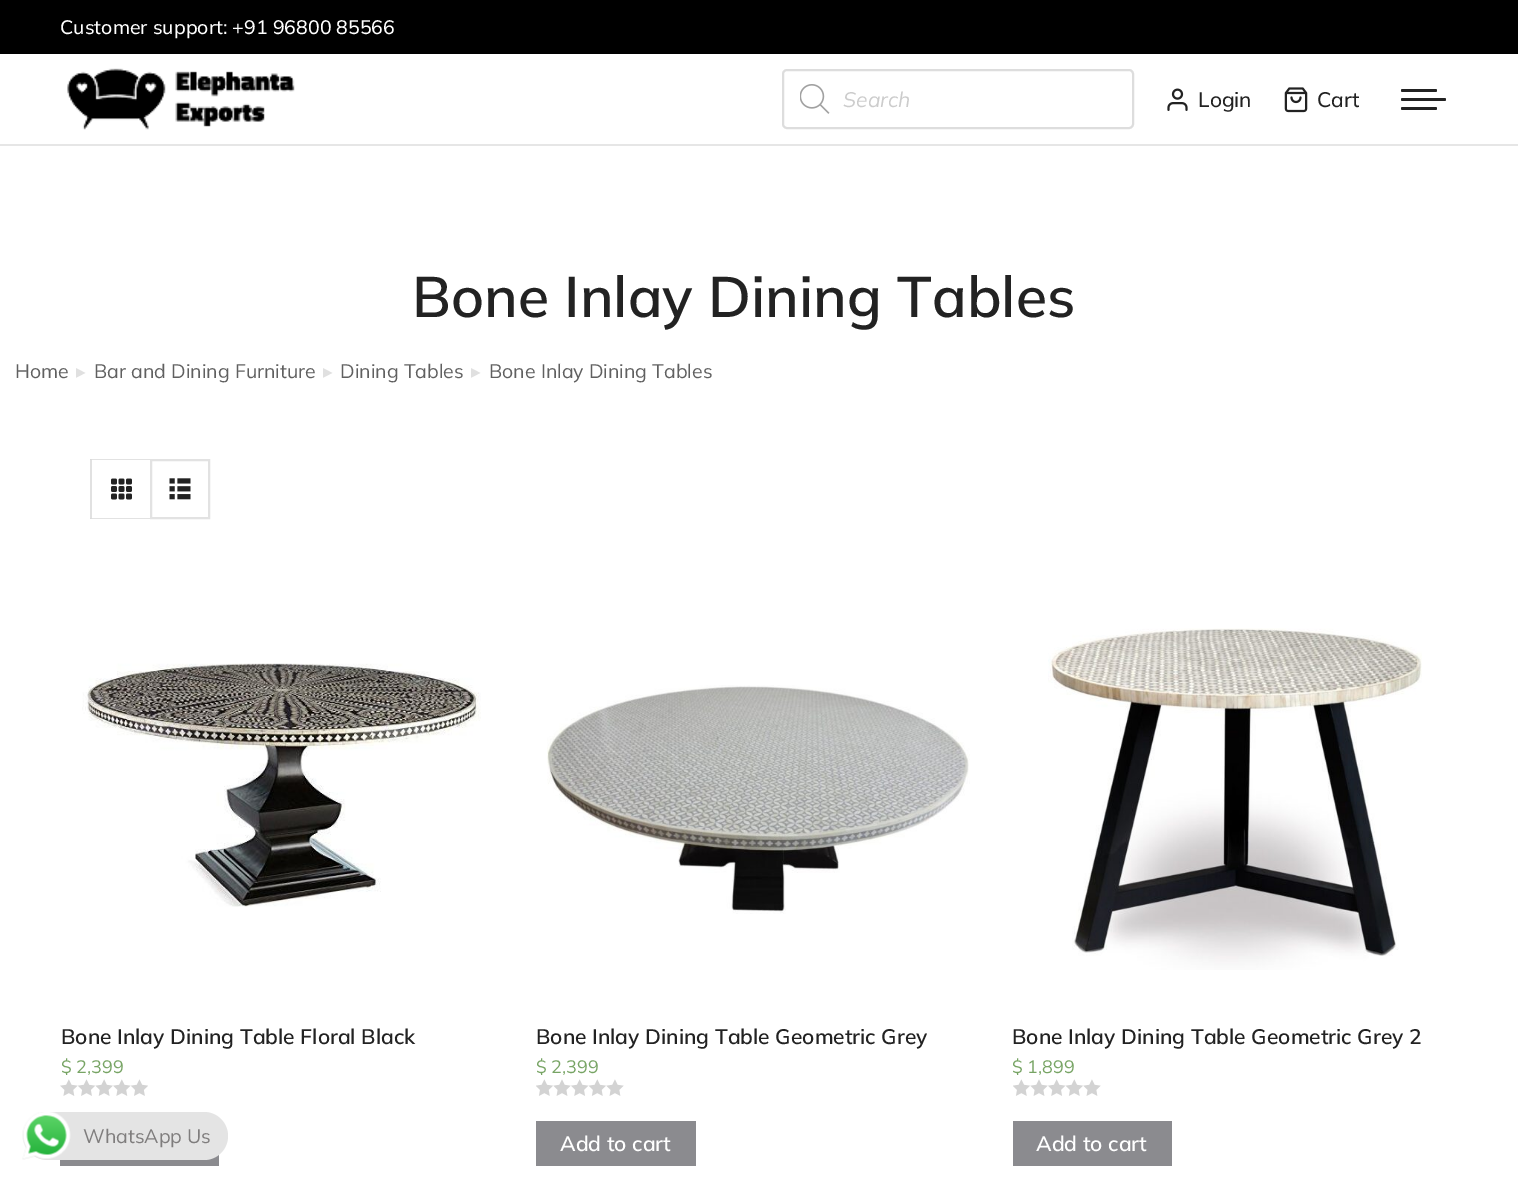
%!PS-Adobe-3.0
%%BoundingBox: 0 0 1518 1181
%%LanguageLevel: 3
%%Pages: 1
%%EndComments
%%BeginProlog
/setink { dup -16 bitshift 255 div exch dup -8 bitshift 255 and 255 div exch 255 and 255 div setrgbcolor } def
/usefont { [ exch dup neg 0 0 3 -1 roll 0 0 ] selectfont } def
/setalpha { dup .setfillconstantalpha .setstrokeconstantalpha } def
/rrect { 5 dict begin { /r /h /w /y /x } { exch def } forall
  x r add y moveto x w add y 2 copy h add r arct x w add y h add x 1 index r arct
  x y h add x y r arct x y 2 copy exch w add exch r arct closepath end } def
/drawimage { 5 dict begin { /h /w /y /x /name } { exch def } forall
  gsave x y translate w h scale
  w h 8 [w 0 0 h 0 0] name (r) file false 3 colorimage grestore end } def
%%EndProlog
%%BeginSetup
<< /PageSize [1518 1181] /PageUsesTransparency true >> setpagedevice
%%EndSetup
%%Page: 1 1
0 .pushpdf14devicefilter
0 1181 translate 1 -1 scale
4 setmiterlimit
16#FFFFFF setink
0 0 1518 1181 rectfill
16#E6E6E6 setink
0 144 1518 2 rectfill
16#000000 setink
0 0 1518 54 rectfill
/Mulish-Medium 19.5 usefont
16#FFFFFF setink
60 34 moveto (Customer support: +91 96800 85566) show
(img1.raw) 67 68 228 62 drawimage
16#DDDDDD setink
2 setlinewidth
783 70 350 58 4 rrect stroke
(img2.raw) 800 84 30 30 drawimage
/Mulish-Italic 21 usefont
16#CCCCCC setink
843 107 moveto (Search) show
(img3.raw) 1167 88 21 23 drawimage
/Mulish-Medium 21 usefont
16#222222 setink
1198 107 moveto (Login) show
(img4.raw) 1284 87 24 26 drawimage
1317 107 moveto (Cart) show
1401 89 36 3 1.5 rrect fill
1401 98 45 3 1.5 rrect fill
1401 107 36 3 1.5 rrect fill
/Mulish-SemiBold 57 usefont
412 317 moveto (Bone Inlay Dining Tables) show
/Mulish-Regular 19.5 usefont
16#606060 setink
15 378 moveto (Home) show
/DejaVuSans-Regular 19.5 usefont
16#E0E0E0 setink
76 378 moveto (▸) show
/Mulish-Regular 19.5 usefont
16#606060 setink
94 378 moveto (Bar and Dining Furniture) show
/DejaVuSans-Regular 19.5 usefont
16#E0E0E0 setink
323 378 moveto (▸) show
/Mulish-Regular 19.5 usefont
16#606060 setink
340 378 moveto (Dining Tables) show
/DejaVuSans-Regular 19.5 usefont
16#E0E0E0 setink
471 378 moveto (▸) show
/Mulish-Regular 19.5 usefont
16#606060 setink
489 378 moveto (Bone Inlay Dining Tables) show
16#E2E2E2 setink
90 459 moveto 150 459 lineto 150 460 lineto 92 460 lineto closepath 150 519 moveto 90 519 lineto 92 518 lineto 150 518 lineto closepath fill
0.12 setalpha
16#0A0A0A setink
90 519 moveto 90 459 lineto 92 460 lineto 92 518 lineto closepath fill
1 setalpha
(img5.raw) 111 478 21 22 drawimage
16#E2E2E2 setink
151 460 58 58 rectstroke
(img6.raw) 169 478 22 22 drawimage
(img7.raw) 82 663 399 244 drawimage
/Mulish-SemiBold 21 usefont
16#222222 setink
61 1044 moveto (Bone Inlay Dining Table Floral Black) show
/Mulish-Regular 18 usefont
16#77A464 setink
61 1073 moveto ($ 2,399) show
(img8.raw) 60 1079 88 17 drawimage
16#8B8B8F setink
60 1154 159 12 rectfill
(img9.raw) 547 685 423 229 drawimage
/Mulish-SemiBold 21 usefont
16#222222 setink
536 1044 moveto (Bone Inlay Dining Table Geometric Grey) show
/Mulish-Regular 18 usefont
16#77A464 setink
536 1073 moveto ($ 2,399) show
(img10.raw) 536 1079 88 17 drawimage
16#8B8B8F setink
536 1121 160 45 rectfill
/Mulish-SemiBold 21 usefont
16#FFFFFF setink
560 1151 moveto (Add to cart) show
(img11.raw) 1048 628 374 342 drawimage
16#222222 setink
1012 1044 moveto (Bone Inlay Dining Table Geometric Grey 2) show
/Mulish-Regular 18 usefont
16#77A464 setink
1012 1073 moveto ($ 1,899) show
(img10.raw) 1013 1079 88 17 drawimage
16#8B8B8F setink
1013 1121 159 45 rectfill
/Mulish-SemiBold 21 usefont
16#FFFFFF setink
1036 1151 moveto (Add to cart) show
16#E4E4E4 setink
23 1112 205 48 24 rrect fill
(img12.raw) 22 1112 49 48 drawimage
/Mulish-Regular 19.5 usefont
16#7F7D7D setink
83 1143 moveto (WhatsApp Us) show
.poppdf14devicefilter showpage
%%EOF
